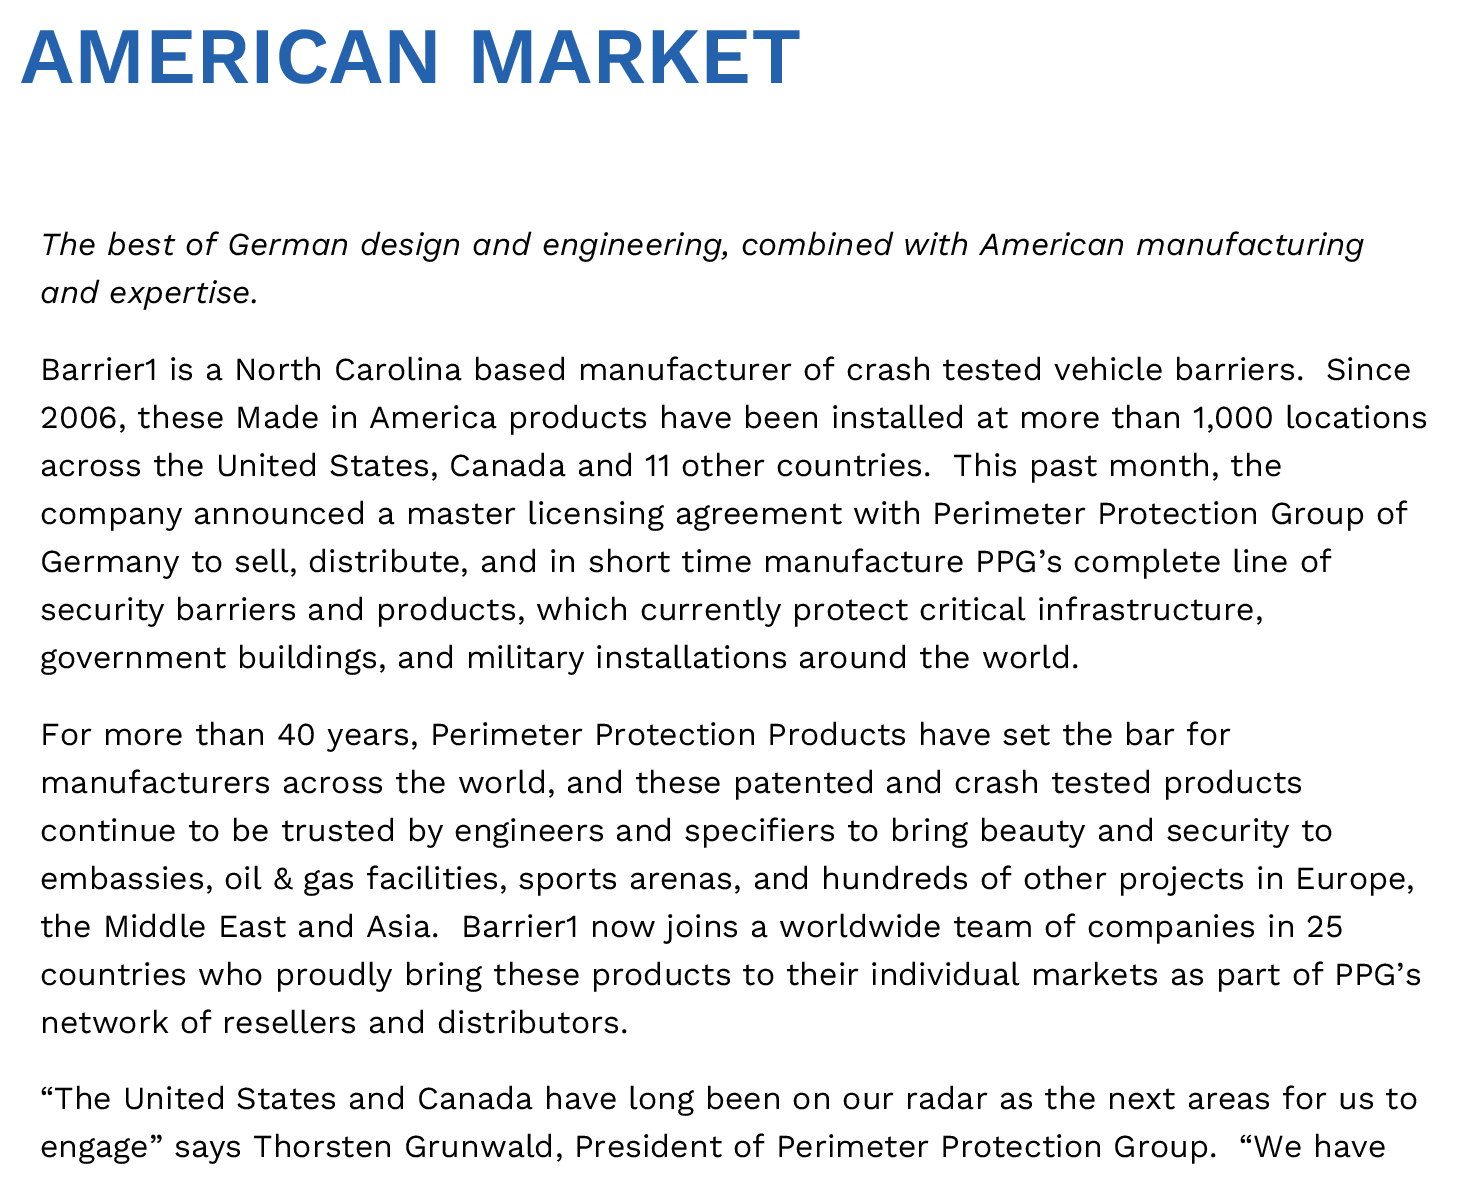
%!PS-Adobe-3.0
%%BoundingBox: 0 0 1472 1183
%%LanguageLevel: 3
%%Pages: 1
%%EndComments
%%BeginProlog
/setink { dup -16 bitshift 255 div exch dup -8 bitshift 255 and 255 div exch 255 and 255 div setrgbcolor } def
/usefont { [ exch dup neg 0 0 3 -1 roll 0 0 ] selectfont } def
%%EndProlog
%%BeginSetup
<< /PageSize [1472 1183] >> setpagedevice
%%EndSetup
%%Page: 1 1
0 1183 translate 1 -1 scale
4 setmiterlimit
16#FFFFFF setink
0 0 1472 1183 rectfill
/WorkSans-SemiBold 80 usefont
16#2462AE setink
20 83 moveto (AMERICAN MARKET) show
/WorkSans-Italic 32 usefont
16#000000 setink
40 255 moveto (The best of German design and engineering, combined with American manufacturing) show
40 303 moveto (and expertise.) show
/WorkSans-Regular 32 usefont
[
    [(Barrier1 is a North Carolina based manufacturer of crash tested vehicle barriers.  Since) 40 380]
    [(2006, these Made in America products have been installed at more than 1,000 locations) 40 428]
    [(across the United States, Canada and 11 other countries.  This past month, the) 40 476]
    [(company announced a master licensing agreement with Perimeter Protection Group of) 40 524]
    [(Germany to sell, distribute, and in short time manufacture PPG’s complete line of) 40 572]
    [(security barriers and products, which currently protect critical infrastructure,) 40 620]
    [(government buildings, and military installations around the world.) 40 668]
    [(For more than 40 years, Perimeter Protection Products have set the bar for) 40 745]
    [(manufacturers across the world, and these patented and crash tested products) 40 793]
    [(continue to be trusted by engineers and specifiers to bring beauty and security to) 40 841]
    [(embassies, oil & gas facilities, sports arenas, and hundreds of other projects in Europe,) 40 889]
    [(the Middle East and Asia.  Barrier1 now joins a worldwide team of companies in 25) 40 937]
    [(countries who proudly bring these products to their individual markets as part of PPG’s) 40 985]
    [(network of resellers and distributors.) 40 1033]
    [(“The United States and Canada have long been on our radar as the next areas for us to) 40 1109]
    [(engage” says Thorsten Grunwald, President of Perimeter Protection Group.  “We have) 40 1157]
] { aload pop moveto show } forall
showpage
%%EOF
